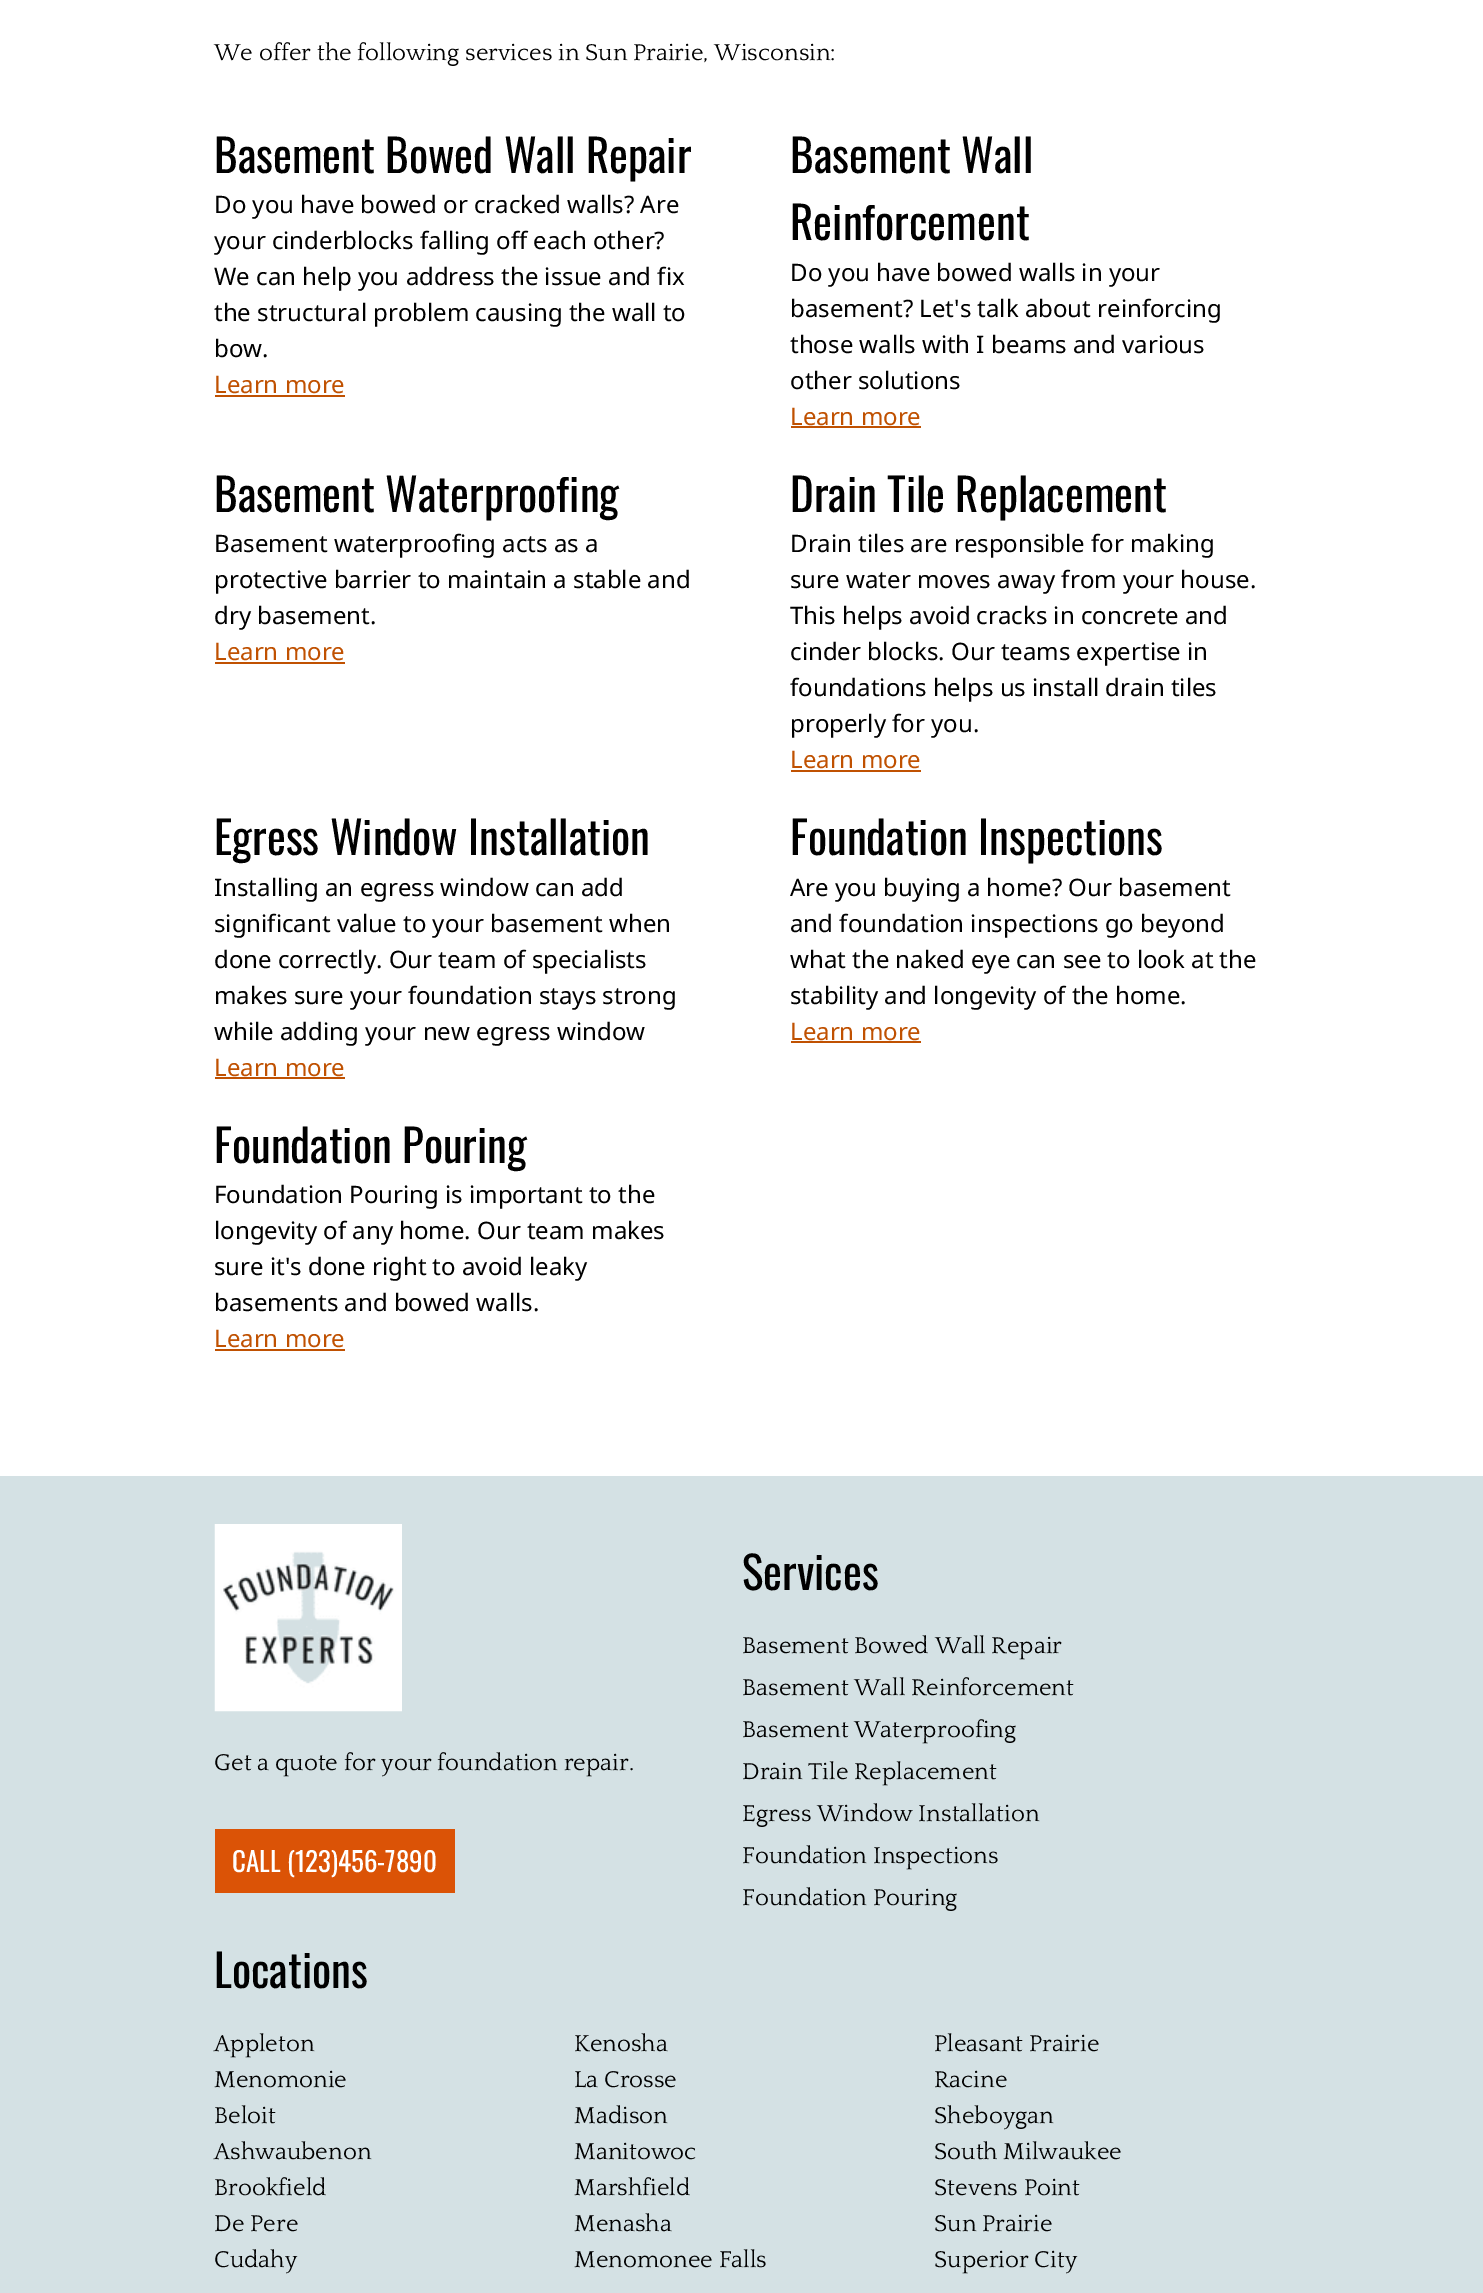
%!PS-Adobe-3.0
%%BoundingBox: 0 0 1483 2293
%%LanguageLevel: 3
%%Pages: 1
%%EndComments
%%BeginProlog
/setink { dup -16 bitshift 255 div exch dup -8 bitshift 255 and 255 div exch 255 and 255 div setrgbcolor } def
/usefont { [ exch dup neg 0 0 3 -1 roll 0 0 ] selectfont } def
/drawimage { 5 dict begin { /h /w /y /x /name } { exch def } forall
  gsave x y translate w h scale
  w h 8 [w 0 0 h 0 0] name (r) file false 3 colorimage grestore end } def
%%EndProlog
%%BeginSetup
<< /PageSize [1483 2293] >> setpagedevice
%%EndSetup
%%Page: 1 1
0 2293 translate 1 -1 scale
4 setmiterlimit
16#FFFFFF setink
0 0 1483 2293 rectfill
/Quattrocento-Regular 24 usefont
16#000000 setink
214 60 moveto (We offer the following services in Sun Prairie, Wisconsin:) show
/Oswald-Regular 45 usefont
214 173 moveto (Basement Bowed Wall Repair) show
/NotoSans-Regular 24 usefont
[
    [(Do you have bowed or cracked walls? Are) 214 213]
    [(your cinderblocks falling off each other?) 214 249]
    [(We can help you address the issue and fix) 214 285]
    [(the structural problem causing the wall to) 214 321]
    [(bow.) 214 357]
] { aload pop moveto show } forall
16#C05101 setink
214 393 moveto (Learn more) show
215 395 130 2 rectfill
/Oswald-Regular 45 usefont
16#000000 setink
790 173 moveto (Basement Wall) show
790 240 moveto (Reinforcement) show
/NotoSans-Regular 24 usefont
[
    [(Do you have bowed walls in your) 790 281]
    [(basement? Let's talk about reinforcing) 790 317]
    [(those walls with I beams and various) 790 353]
    [(other solutions) 790 389]
] { aload pop moveto show } forall
16#C05101 setink
790 425 moveto (Learn more) show
791 426 130 2 rectfill
/Oswald-Regular 45 usefont
16#000000 setink
214 512 moveto (Basement Waterproofing) show
/NotoSans-Regular 24 usefont
[
    [(Basement waterproofing acts as a) 214 552]
    [(protective barrier to maintain a stable and) 214 588]
    [(dry basement.) 214 624]
] { aload pop moveto show } forall
16#C05101 setink
214 660 moveto (Learn more) show
215 662 130 2 rectfill
/Oswald-Regular 45 usefont
16#000000 setink
790 512 moveto (Drain Tile Replacement) show
/NotoSans-Regular 24 usefont
[
    [(Drain tiles are responsible for making) 790 552]
    [(sure water moves away from your house.) 790 588]
    [(This helps avoid cracks in concrete and) 790 624]
    [(cinder blocks. Our teams expertise in) 790 660]
    [(foundations helps us install drain tiles) 790 696]
    [(properly for you.) 790 732]
] { aload pop moveto show } forall
16#C05101 setink
790 768 moveto (Learn more) show
791 770 130 2 rectfill
/Oswald-Regular 45 usefont
16#000000 setink
214 855 moveto (Egress Window Installation) show
/NotoSans-Regular 24 usefont
[
    [(Installing an egress window can add) 214 896]
    [(significant value to your basement when) 214 932]
    [(done correctly. Our team of specialists) 214 968]
    [(makes sure your foundation stays strong) 214 1004]
    [(while adding your new egress window) 214 1040]
] { aload pop moveto show } forall
16#C05101 setink
214 1076 moveto (Learn more) show
215 1077 130 2 rectfill
/Oswald-Regular 45 usefont
16#000000 setink
790 855 moveto (Foundation Inspections) show
/NotoSans-Regular 24 usefont
[
    [(Are you buying a home? Our basement) 790 896]
    [(and foundation inspections go beyond) 790 932]
    [(what the naked eye can see to look at the) 790 968]
    [(stability and longevity of the home.) 790 1004]
] { aload pop moveto show } forall
16#C05101 setink
790 1040 moveto (Learn more) show
791 1041 130 2 rectfill
/Oswald-Regular 45 usefont
16#000000 setink
214 1163 moveto (Foundation Pouring) show
/NotoSans-Regular 24 usefont
[
    [(Foundation Pouring is important to the) 214 1203]
    [(longevity of any home. Our team makes) 214 1239]
    [(sure it's done right to avoid leaky) 214 1275]
    [(basements and bowed walls.) 214 1311]
] { aload pop moveto show } forall
16#C05101 setink
214 1347 moveto (Learn more) show
215 1349 130 2 rectfill
16#D4E1E4 setink
0 1476 1483 817 rectfill
(img1.raw) 214 1524 188 188 drawimage
/Quattrocento-Regular 24 usefont
16#000000 setink
214 1770 moveto (Get a quote for your foundation repair.) show
16#DB5306 setink
215 1829 240 64 rectfill
/Oswald-Regular 27 usefont
16#FFFFFF setink
232 1872 moveto (CALL \(123\)456-7890) show
/Oswald-Regular 45 usefont
16#000000 setink
742 1590 moveto (Services) show
/Quattrocento-Regular 24 usefont
[
    [(Basement Bowed Wall Repair) 742 1653]
    [(Basement Wall Reinforcement) 742 1695]
    [(Basement Waterproofing) 742 1737]
    [(Drain Tile Replacement) 742 1779]
    [(Egress Window Installation) 742 1821]
    [(Foundation Inspections) 742 1863]
    [(Foundation Pouring) 742 1905]
] { aload pop moveto show } forall
/Oswald-Regular 45 usefont
214 1988 moveto (Locations) show
/Quattrocento-Regular 24 usefont
[
    [(Appleton) 214 2051]
    [(Menomonie) 214 2087]
    [(Beloit) 214 2123]
    [(Ashwaubenon) 214 2159]
    [(Brookfield) 214 2195]
    [(De Pere) 214 2231]
    [(Cudahy) 214 2267]
    [(Kenosha) 574 2051]
    [(La Crosse) 574 2087]
    [(Madison) 574 2123]
    [(Manitowoc) 574 2159]
    [(Marshfield) 574 2195]
    [(Menasha) 574 2231]
    [(Menomonee Falls) 574 2267]
    [(Pleasant Prairie) 934 2051]
    [(Racine) 934 2087]
    [(Sheboygan) 934 2123]
    [(South Milwaukee) 934 2159]
    [(Stevens Point) 934 2195]
    [(Sun Prairie) 934 2231]
    [(Superior City) 934 2267]
] { aload pop moveto show } forall
showpage
%%EOF
